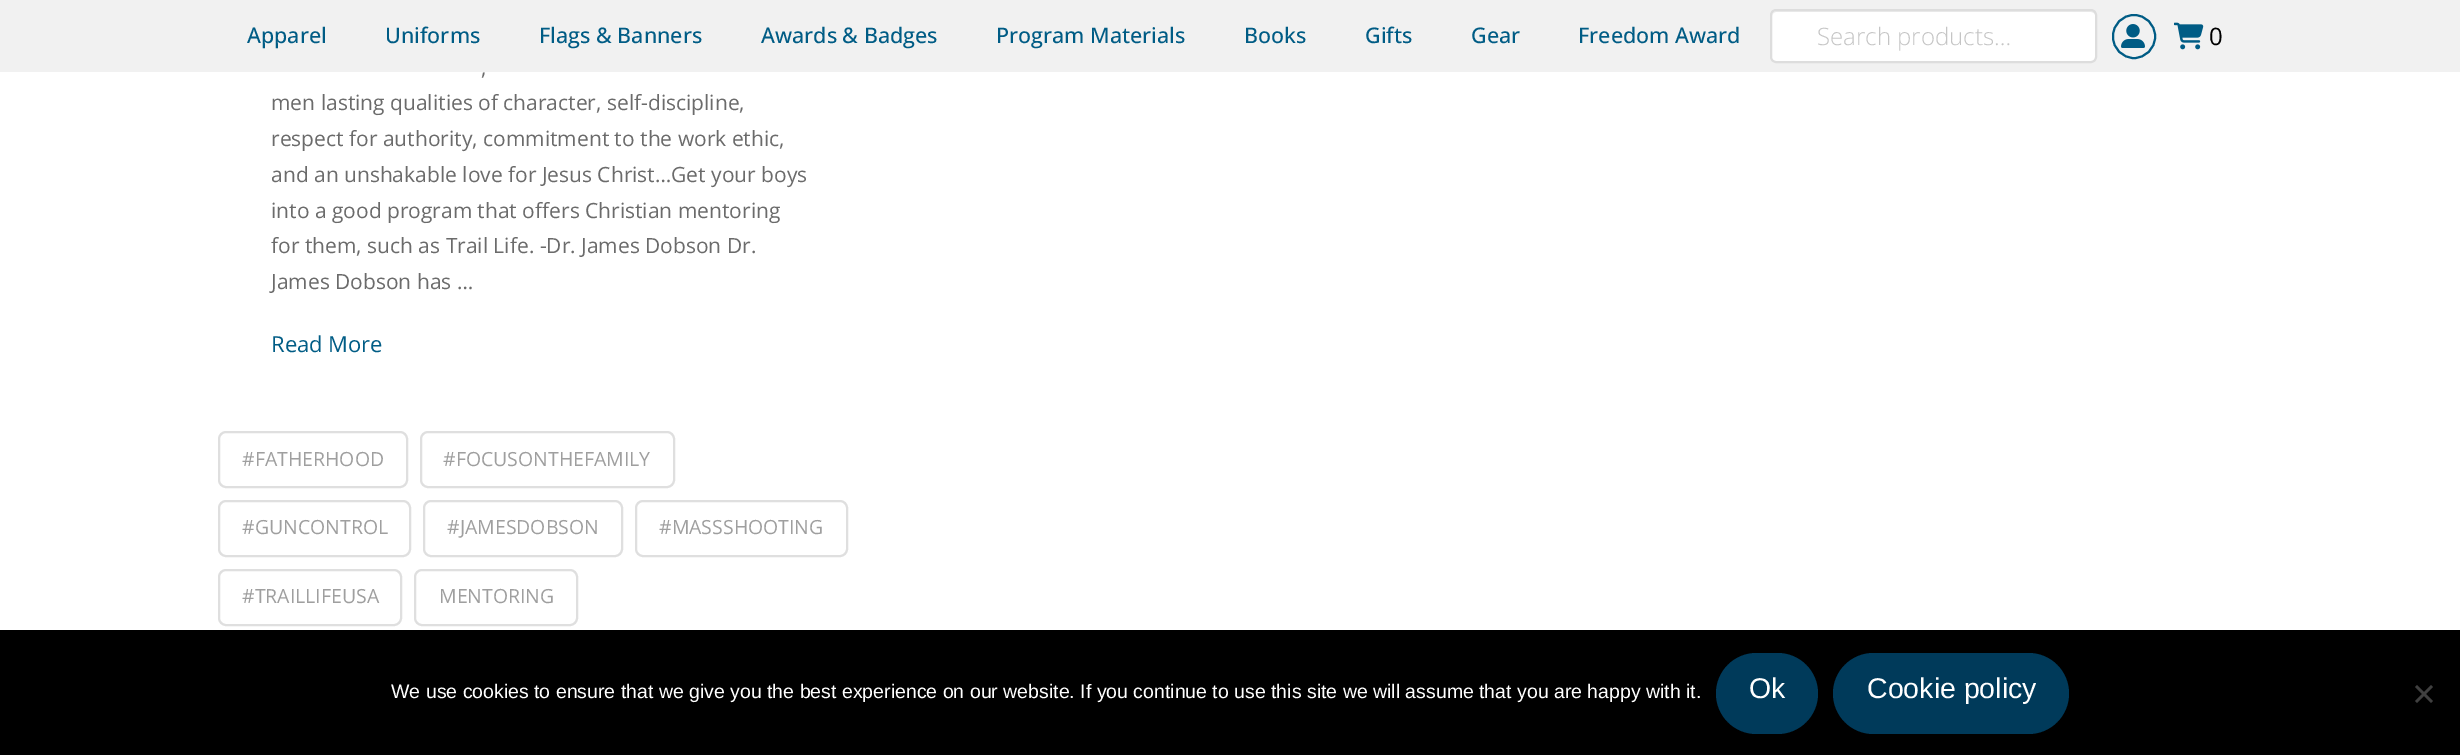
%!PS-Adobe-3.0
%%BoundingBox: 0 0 2460 755
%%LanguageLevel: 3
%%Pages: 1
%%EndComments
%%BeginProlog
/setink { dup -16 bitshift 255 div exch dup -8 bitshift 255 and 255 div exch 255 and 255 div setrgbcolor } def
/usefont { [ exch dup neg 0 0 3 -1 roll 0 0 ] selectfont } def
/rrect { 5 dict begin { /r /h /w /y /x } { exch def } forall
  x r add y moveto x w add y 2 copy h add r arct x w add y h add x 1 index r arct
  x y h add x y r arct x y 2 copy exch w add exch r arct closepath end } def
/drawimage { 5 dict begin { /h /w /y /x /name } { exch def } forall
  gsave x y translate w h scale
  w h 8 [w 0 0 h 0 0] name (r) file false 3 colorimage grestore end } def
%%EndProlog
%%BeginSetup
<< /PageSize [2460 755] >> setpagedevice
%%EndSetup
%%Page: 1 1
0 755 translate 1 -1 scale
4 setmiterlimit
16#FFFFFF setink
0 0 2460 755 rectfill
16#F1F1F1 setink
0 0 2460 72 rectfill
/OpenSans-Medium 21.5 usefont
16#005C85 setink
[
    [(Apparel) 247 43]
    [(Uniforms) 385 43]
    [(Flags & Banners) 539 43]
    [(Awards & Badges) 761 43]
    [(Program Materials) 996 43]
    [(Books) 1244 43]
    [(Gifts) 1365 43]
    [(Gear) 1471 43]
    [(Freedom Award) 1578 43]
] { aload pop moveto show } forall
16#FFFFFF setink
1770 9 327 54 6 rrect fill
16#ECECEC setink
1776 12 moveto 2091 12 lineto 2093 12 2096 14 2096 16 curveto 2096 13 2094 11 2091 11 curveto 1777 11 lineto 1774 11 1772 13 1772 16 curveto 1772 14 1774 12 1776 12 curveto closepath fill
16#DDDDDD setink
2 setlinewidth
1771 10 325 52 5 rrect stroke
/OpenSans-Light 24 usefont
16#C5C5C5 setink
1817 45 moveto (Search products…) show
16#005C85 setink
2113 15 42 43 21 rrect stroke
(img1.raw) 2121 24 24 24 drawimage
(img2.raw) 2174 22 30 28 drawimage
/OpenSans-Regular 24 usefont
16#000000 setink
2209 45 moveto (0) show
/OpenSans-Regular 21 usefont
16#6B6B6B setink
[
    [(,) 481 75]
    [(men lasting qualities of character, self-discipline,) 271 110]
    [(respect for authority, commitment to the work ethic,) 271 146]
    [(and an unshakable love for Jesus Christ…Get your boys) 271 182]
    [(into a good program that offers Christian mentoring) 271 218]
    [(for them, such as Trail Life. -Dr. James Dobson Dr.) 271 253]
    [(James Dobson has …) 271 289]
] { aload pop moveto show } forall
/OpenSans-Regular 22 usefont
16#005C85 setink
271 352 moveto (Read More) show
16#DFDFDF setink
219 432 188 55 7 rrect stroke
/OpenSans-Regular 19.5 usefont
16#9F9F9F setink
242 466 moveto (#FATHERHOOD) show
16#DFDFDF setink
421 432 253 55 7 rrect stroke
16#9F9F9F setink
443 466 moveto (#FOCUSONTHEFAMILY) show
16#DFDFDF setink
219 501 191 55 7 rrect stroke
16#9F9F9F setink
242 534 moveto (#GUNCONTROL) show
16#DFDFDF setink
424 501 198 55 7 rrect stroke
16#9F9F9F setink
447 534 moveto (#JAMESDOBSON) show
16#DFDFDF setink
636 501 211 55 7 rrect stroke
16#9F9F9F setink
659 534 moveto (#MASSSHOOTING) show
16#DFDFDF setink
219 570 182 55 7 rrect stroke
16#9F9F9F setink
242 603 moveto (#TRAILLIFEUSA) show
16#DFDFDF setink
415 570 162 55 7 rrect stroke
16#9F9F9F setink
439 603 moveto (MENTORING) show
16#000000 setink
0 630 2460 125 rectfill
/LiberationSans-Regular 19.5 usefont
16#FFFFFF setink
391 698 moveto (We use cookies to ensure that we give you the best experience on our website. If you continue to use this site we will assume that you are happy with it.) show
16#003A5A setink
1716 653 102 81 40.5 rrect fill
/LiberationSans-Regular 28.5 usefont
16#FFFFFF setink
1749 698 moveto (Ok) show
16#003A5A setink
1833 653 236 81 40.5 rrect fill
16#FFFFFF setink
1867 698 moveto (Cookie policy) show
16#404040 setink
2431 685 moveto 2433 687 lineto 2417 703 lineto 2415 701 lineto closepath fill
2415 687 moveto 2417 685 lineto 2433 701 lineto 2431 703 lineto closepath fill
showpage
%%EOF
